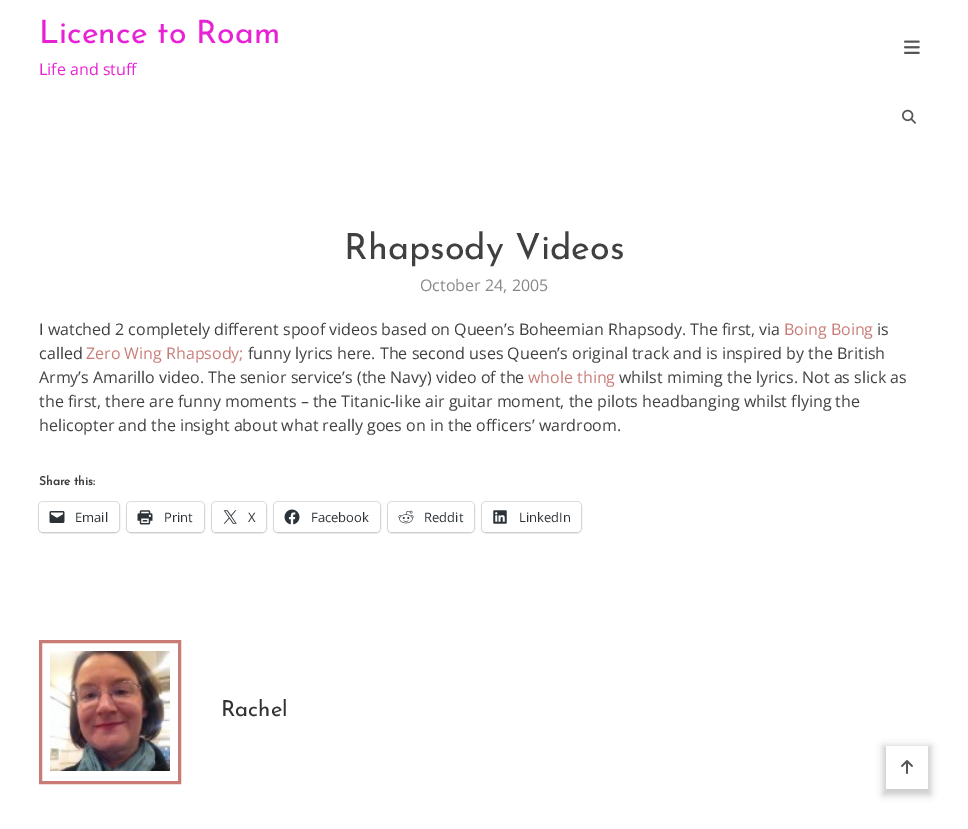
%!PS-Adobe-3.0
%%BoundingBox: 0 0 968 829
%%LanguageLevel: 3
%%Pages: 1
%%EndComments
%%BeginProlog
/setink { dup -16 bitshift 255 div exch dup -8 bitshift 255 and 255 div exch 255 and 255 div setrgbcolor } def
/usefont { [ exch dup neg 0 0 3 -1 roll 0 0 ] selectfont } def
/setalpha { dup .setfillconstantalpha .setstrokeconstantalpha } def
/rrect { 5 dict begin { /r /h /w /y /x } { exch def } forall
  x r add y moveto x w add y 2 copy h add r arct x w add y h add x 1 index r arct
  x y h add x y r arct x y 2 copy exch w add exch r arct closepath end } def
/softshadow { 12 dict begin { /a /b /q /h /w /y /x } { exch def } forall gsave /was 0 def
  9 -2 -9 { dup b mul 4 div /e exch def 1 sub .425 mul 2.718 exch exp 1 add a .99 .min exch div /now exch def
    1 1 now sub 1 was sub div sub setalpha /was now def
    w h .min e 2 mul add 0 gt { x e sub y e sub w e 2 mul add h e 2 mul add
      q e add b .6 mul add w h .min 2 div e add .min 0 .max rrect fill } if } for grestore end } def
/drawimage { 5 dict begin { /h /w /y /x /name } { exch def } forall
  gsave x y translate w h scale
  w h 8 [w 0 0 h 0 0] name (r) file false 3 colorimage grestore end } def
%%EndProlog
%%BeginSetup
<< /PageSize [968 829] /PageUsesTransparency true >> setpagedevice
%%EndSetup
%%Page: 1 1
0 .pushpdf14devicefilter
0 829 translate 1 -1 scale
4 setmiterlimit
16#FFFFFF setink
0 0 968 829 rectfill
/JosefinSans-Thin 32 usefont
16#E822D4 setink
39 43 moveto (Licence to Roam) show
/OpenSans-Regular 16 usefont
39 75 moveto (Life and stuff) show
(img1.raw) 904 40 16 14 drawimage
(img2.raw) 902 109 14 15 drawimage
/JosefinSans-Thin 36 usefont
16#404040 setink
344 259 moveto (Rhapsody Videos) show
/OpenSans-Regular 16 usefont
16#888888 setink
420 291 moveto (October 24, 2005) show
16#404040 setink
39 335 moveto (I watched 2 completely different spoof videos based on Queen’s Boheemian Rhapsody. The first, via) show
16#C97C76 setink
784 335 moveto (Boing Boing) show
16#404040 setink
877 335 moveto (is) show
39 359 moveto (called) show
16#C97C76 setink
86 359 moveto (Zero Wing Rhapsody;) show
16#404040 setink
248 359 moveto (funny lyrics here. The second uses Queen’s original track and is inspired by the British) show
39 383 moveto (Army’s Amarillo video. The senior service’s \(the Navy\) video of the) show
16#C97C76 setink
528 383 moveto (whole thing) show
16#404040 setink
[
    [(whilst miming the lyrics. Not as slick as) 619 383]
    [(the first, there are funny moments – the Titanic-like air guitar moment, the pilots headbanging whilst flying the) 39 407]
    [(helicopter and the insight about what really goes on in the officers’ wardroom.) 39 431]
] { aload pop moveto show } forall
/JosefinSans-Bold 12 usefont
39 485 moveto (Share this:) show
16#E0E0E0 setink
38.5 501.5 81 31 4.5 rrect stroke
16#000000 setink
39 503 80 30 4 1 0.12 softshadow
16#FFFFFF setink
39 502 80 30 4 rrect fill
(img3.raw) 49 511 16 12 drawimage
/OpenSans-Regular 13 usefont
16#2C3338 setink
75 522 moveto (Email) show
16#E0E0E0 setink
126.5 501.5 78 31 4.5 rrect stroke
16#000000 setink
127 503 77 30 4 1 0.12 softshadow
16#FFFFFF setink
127 502 77 30 4 rrect fill
(img4.raw) 137 510 16 15 drawimage
16#2C3338 setink
164 522 moveto (Print) show
16#E0E0E0 setink
211.5 501.5 55 31 4.5 rrect stroke
16#000000 setink
212 503 54 30 4 1 0.12 softshadow
16#FFFFFF setink
212 502 54 30 4 rrect fill
(img5.raw) 223 510 14 14 drawimage
16#2C3338 setink
248 522 moveto (X) show
16#E0E0E0 setink
273.5 501.5 107 31 4.5 rrect stroke
16#000000 setink
274 503 106 30 4 1 0.12 softshadow
16#FFFFFF setink
274 502 106 30 4 rrect fill
(img6.raw) 284 509 16 16 drawimage
16#2C3338 setink
311 522 moveto (Facebook) show
16#E0E0E0 setink
387.5 501.5 87 31 4.5 rrect stroke
16#000000 setink
388 503 86 30 4 1 0.12 softshadow
16#FFFFFF setink
388 502 86 30 4 rrect fill
(img7.raw) 398 510 16 14 drawimage
16#2C3338 setink
424 522 moveto (Reddit) show
16#E0E0E0 setink
481.5 501.5 100 31 4.5 rrect stroke
16#000000 setink
482 503 99 30 4 1 0.12 softshadow
16#FFFFFF setink
482 502 99 30 4 rrect fill
(img8.raw) 493 510 14 14 drawimage
16#2C3338 setink
519 522 moveto (LinkedIn) show
16#C97C76 setink
3 setlinewidth
40.5 641.5 139 141 rectstroke
(img9.raw) 50 651 120 120 drawimage
/JosefinSans-Thin 22 usefont
16#333333 setink
221 716 moveto (Rachel) show
gsave
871 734 moveto 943 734 lineto 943 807 lineto 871 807 lineto closepath 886 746 moveto 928 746 lineto 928 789 lineto 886 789 lineto closepath eoclip newpath
16#000000 setink
883 746 48 49 0 3.5 0.2 softshadow
grestore
(img10.raw) 901 760 12 14 drawimage
.poppdf14devicefilter showpage
%%EOF
